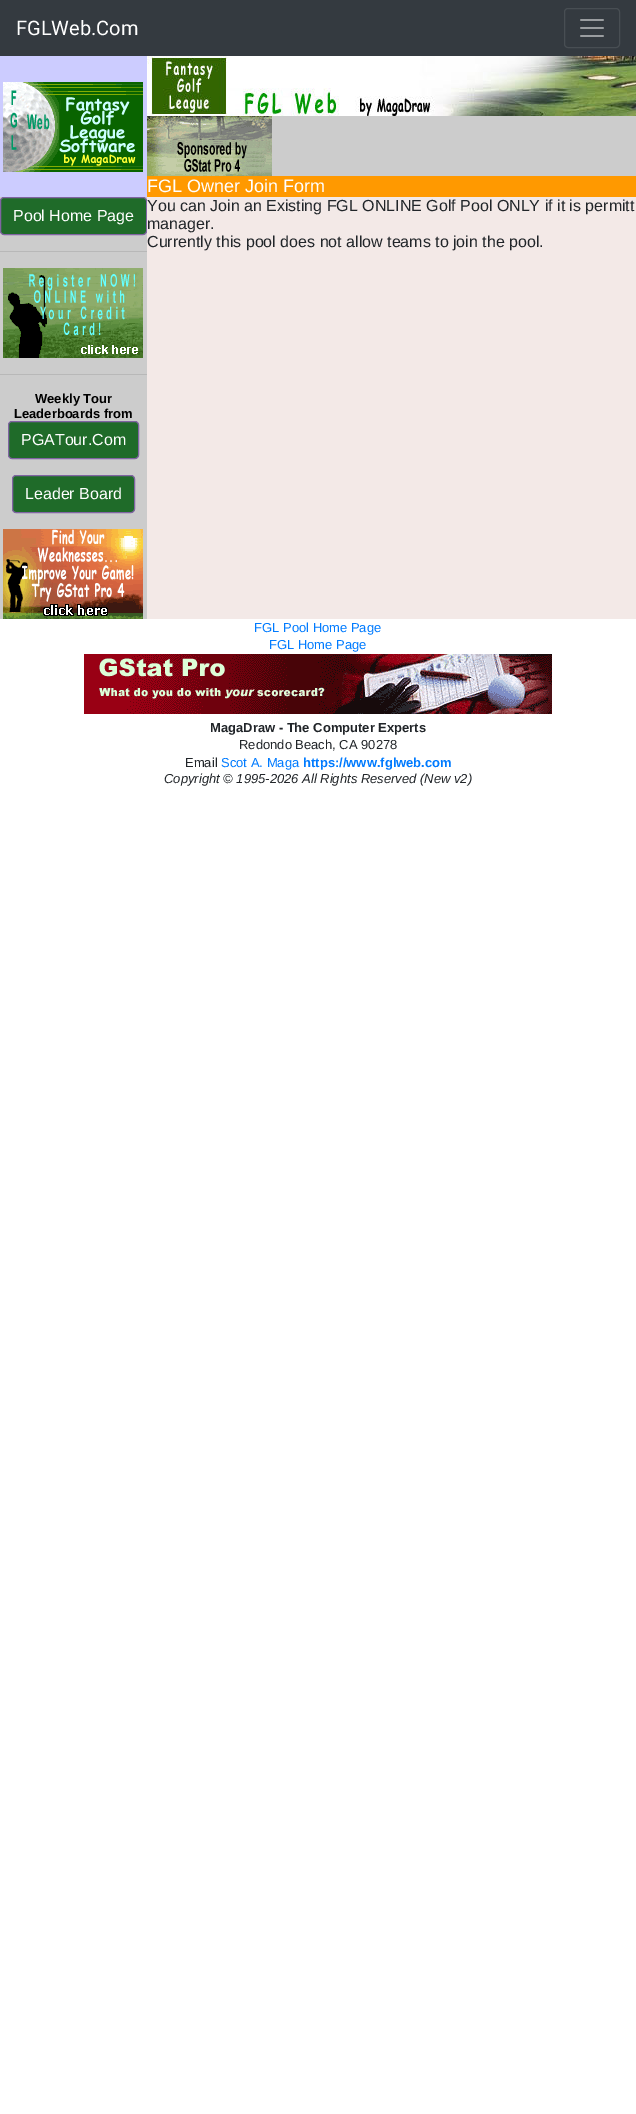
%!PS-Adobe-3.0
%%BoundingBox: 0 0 636 2114
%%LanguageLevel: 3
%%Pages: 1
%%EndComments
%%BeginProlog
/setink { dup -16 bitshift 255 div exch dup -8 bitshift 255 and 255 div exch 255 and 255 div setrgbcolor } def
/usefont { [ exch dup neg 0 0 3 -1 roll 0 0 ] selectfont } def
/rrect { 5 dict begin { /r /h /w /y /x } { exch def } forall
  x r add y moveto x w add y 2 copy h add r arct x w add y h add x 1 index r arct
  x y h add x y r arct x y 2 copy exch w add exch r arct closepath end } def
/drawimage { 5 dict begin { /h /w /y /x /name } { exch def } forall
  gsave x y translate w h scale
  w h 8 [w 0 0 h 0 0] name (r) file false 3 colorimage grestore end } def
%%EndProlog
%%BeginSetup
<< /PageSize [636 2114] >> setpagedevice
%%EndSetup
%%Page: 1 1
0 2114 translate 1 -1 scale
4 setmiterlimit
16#FFFFFF setink
0 0 636 2114 rectfill
16#343A40 setink
0 0 636 56 rectfill
/Roboto-Regular 20 usefont
16#FFFFFF setink
16 35 moveto (FGLWeb.Com) show
16#484E53 setink
564.5 8.5 55 39 3.5 rrect stroke
(img1.raw) 580 19 24 18 drawimage
16#CCCCFF setink
0 56 147 141 rectfill
(img2.raw) 3 82 140 90 drawimage
16#CCCCCC setink
272 116 364 60 rectfill
(img3.raw) 147 56 489 60 drawimage
(img4.raw) 147 116 125 60 drawimage
16#FF9900 setink
147 176 489 21 rectfill
/LiberationSans-Regular 18 usefont
16#FFFFFF setink
147 192 moveto (FGL Owner Join Form) show
16#CCCCCC setink
0 197 147 422 rectfill
16#1F6B29 setink
0.5 197.5 146 37 3.5 rrect gsave fill grestore
16#8064A2 setink
stroke
/LiberationSans-Regular 16 usefont
16#FFFFFF setink
13 221 moveto (Pool Home Page) show
16#B8B8B8 setink
0 251 147 1 rectfill
(img5.raw) 3 268 140 90 drawimage
0 374 147 1 rectfill
/LiberationSans-Bold 13 usefont
16#000000 setink
35 403 moveto (Weekly Tour) show
14 418 moveto (Leaderboards from) show
16#1F6B29 setink
8.5 421.5 130 37 3.5 rrect gsave fill grestore
16#8064A2 setink
stroke
/LiberationSans-Regular 16 usefont
16#FFFFFF setink
21 445 moveto (PGATour.Com) show
16#1F6B29 setink
12.5 475.5 122 37 3.5 rrect gsave fill grestore
16#8064A2 setink
stroke
16#FFFFFF setink
25 499 moveto (Leader Board) show
(img6.raw) 3 529 140 90 drawimage
16#F3E9E7 setink
147 197 489 422 rectfill
16#212529 setink
[
    [(You can Join an Existing FGL ONLINE Golf Pool ONLY if it is permitt) 147 211]
    [(manager.) 147 229]
    [(Currently this pool does not allow teams to join the pool.) 147 247]
] { aload pop moveto show } forall
/LiberationSans-Regular 13 usefont
16#007BFF setink
254 632 moveto (FGL Pool Home Page) show
269 649 moveto (FGL Home Page) show
(img7.raw) 84 654 468 60 drawimage
/LiberationSans-Bold 13 usefont
16#212529 setink
210 732 moveto (MagaDraw - The Computer Experts) show
/LiberationSans-Regular 13 usefont
239 749 moveto (Redondo Beach, CA 90278) show
185 767 moveto (Email) show
16#007BFF setink
221 767 moveto (Scot A. Maga) show
/LiberationSans-Bold 13 usefont
303 767 moveto (https://www.fglweb.com) show
/LiberationSans-Italic 13 usefont
16#212529 setink
164 783 moveto (Copyright © 1995-2026 All Rights Reserved \(New v2\)) show
showpage
%%EOF
